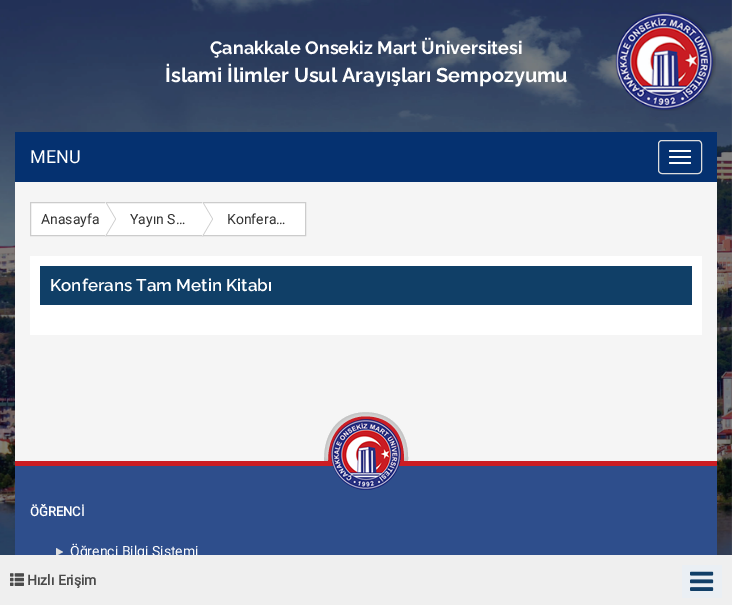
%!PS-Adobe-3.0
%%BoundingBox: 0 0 732 605
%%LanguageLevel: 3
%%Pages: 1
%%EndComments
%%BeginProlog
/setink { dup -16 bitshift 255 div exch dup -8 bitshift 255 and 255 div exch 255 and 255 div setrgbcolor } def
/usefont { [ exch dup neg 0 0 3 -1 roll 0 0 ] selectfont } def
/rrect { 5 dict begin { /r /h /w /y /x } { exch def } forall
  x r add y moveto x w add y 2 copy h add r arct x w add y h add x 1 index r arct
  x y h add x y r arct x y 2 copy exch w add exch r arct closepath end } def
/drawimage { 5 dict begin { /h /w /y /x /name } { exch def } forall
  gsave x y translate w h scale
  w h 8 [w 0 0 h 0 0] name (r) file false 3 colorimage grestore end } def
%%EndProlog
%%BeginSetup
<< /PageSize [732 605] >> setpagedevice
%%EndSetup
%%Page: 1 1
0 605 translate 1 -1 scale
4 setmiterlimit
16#FFFFFF setink
0 0 732 605 rectfill
(img1.raw) 0 0 732 555 drawimage
/Raleway-Bold 18 usefont
210 54 moveto (Çanakkale Onsekiz Mart Üniversitesi) show
/Raleway-Bold 20 usefont
165 82 moveto (İslami İlimler Usul Arayışları Sempozyumu) show
(img2.raw) 615 11 101 100 drawimage
16#053170 setink
15 132 702 50 rectfill
/Roboto-Regular 18 usefont
16#FFFFFF setink
30 163 moveto (MENU) show
16#DDDDDD setink
658.5 140.5 43 33 3.5 rrect stroke
16#FFFFFF setink
669 150 22 2 1 rrect fill
669 156 22 2 1 rrect fill
669 162 22 2 1 rrect fill
16#F5F5F5 setink
15 182 702 279 rectfill
16#FFFFFF setink
30.5 202.5 moveto 105.5 202.5 lineto 105.5 235.5 lineto 30.5 235.5 lineto closepath gsave fill grestore
16#CCCCCC setink
stroke
16#FFFFFF setink
105.5 202.5 moveto 202.5 202.5 lineto 202.5 235.5 lineto 105.5 235.5 lineto closepath gsave fill grestore
16#CCCCCC setink
stroke
106 236 moveto 106 202 lineto 116 219 lineto closepath fill
16#FFFFFF setink
105 236 moveto 105 202 lineto 115 219 lineto closepath fill
/Roboto-Regular 14 usefont
16#333333 setink
41 224 moveto (Anasayfa) show
16#FFFFFF setink
202.5 202.5 moveto 305.5 202.5 lineto 305.5 235.5 lineto 202.5 235.5 lineto closepath gsave fill grestore
16#CCCCCC setink
stroke
203 236 moveto 203 202 lineto 213 219 lineto closepath fill
16#FFFFFF setink
202 236 moveto 202 202 lineto 212 219 lineto closepath fill
16#333333 setink
130 224 moveto (Yayın S…) show
227 224 moveto (Konfera…) show
16#FFFFFF setink
30 256 672 79 rectfill
16#103F67 setink
40 266 652 39 rectfill
/Raleway-SemiBold 17 usefont
16#FFFFFF setink
50 291 moveto (Konferans Tam Metin Kitabı) show
16#2E4E8C setink
15 466 702 89 rectfill
16#CA1D24 setink
15 461 702 5 rectfill
(img3.raw) 324 412 85 78 drawimage
/Roboto-Bold 13 usefont
16#FFFFFF setink
30 516 moveto (ÖĞRENCİ) show
(img4.raw) 56 548 7 7 drawimage
/Roboto-Regular 14 usefont
70 556 moveto (Öğrenci Bilgi Sistemi) show
16#EFEFEF setink
0 555 732 50 rectfill
(img5.raw) 10 573 14 13 drawimage
/Roboto-Bold 14 usefont
16#4A4A4A setink
27 585 moveto (Hızlı Erişim) show
16#EAEFF4 setink
682 565 40 33 rectfill
(img6.raw) 690 571 24 20 drawimage
showpage
%%EOF
